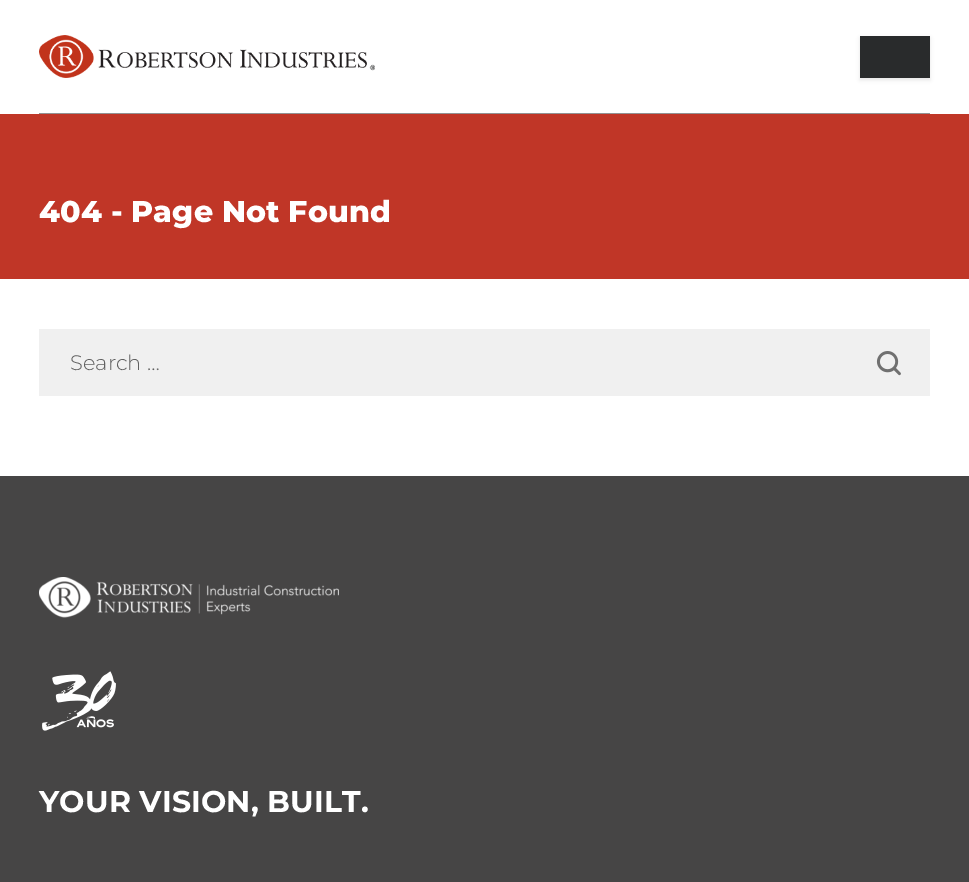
%!PS-Adobe-3.0
%%BoundingBox: 0 0 969 882
%%LanguageLevel: 3
%%Pages: 1
%%EndComments
%%BeginProlog
/setink { dup -16 bitshift 255 div exch dup -8 bitshift 255 and 255 div exch 255 and 255 div setrgbcolor } def
/usefont { [ exch dup neg 0 0 3 -1 roll 0 0 ] selectfont } def
/setalpha { dup .setfillconstantalpha .setstrokeconstantalpha } def
/rrect { 5 dict begin { /r /h /w /y /x } { exch def } forall
  x r add y moveto x w add y 2 copy h add r arct x w add y h add x 1 index r arct
  x y h add x y r arct x y 2 copy exch w add exch r arct closepath end } def
/softshadow { 12 dict begin { /a /b /q /h /w /y /x } { exch def } forall gsave /was 0 def
  9 -2 -9 { dup b mul 4 div /e exch def 1 sub .425 mul 2.718 exch exp 1 add a .99 .min exch div /now exch def
    1 1 now sub 1 was sub div sub setalpha /was now def
    w h .min e 2 mul add 0 gt { x e sub y e sub w e 2 mul add h e 2 mul add
      q e add b .6 mul add w h .min 2 div e add .min 0 .max rrect fill } if } for grestore end } def
/drawimage { 5 dict begin { /h /w /y /x /name } { exch def } forall
  gsave x y translate w h scale
  w h 8 [w 0 0 h 0 0] name (r) file false 3 colorimage grestore end } def
%%EndProlog
%%BeginSetup
<< /PageSize [969 882] /PageUsesTransparency true >> setpagedevice
%%EndSetup
%%Page: 1 1
0 .pushpdf14devicefilter
0 882 translate 1 -1 scale
4 setmiterlimit
16#FFFFFF setink
0 0 969 882 rectfill
16#929292 setink
39 113 891 1 rectfill
(img1.raw) 39 35 336 43 drawimage
16#000000 setink
860 38 70 42 0 2 0.1 softshadow
16#292B2C setink
860 36 70 42 rectfill
16#C03627 setink
0 114 969 165 rectfill
/Montserrat-ExtraBold 30 usefont
16#FFFFFF setink
39 222 moveto 0.1 0 (404 - Page Not Found) ashow
16#F0F0F0 setink
39 329 891 67 rectfill
/Montserrat-Light 21 usefont
16#606060 setink
70 370 moveto (Search …) show
(img2.raw) 876 351 25 25 drawimage
16#464545 setink
0 476 969 406 rectfill
(img3.raw) 39 577 300 41 drawimage
(img4.raw) 42 671 74 60 drawimage
/Montserrat-Bold 30 usefont
16#FFFFFF setink
39 812 moveto 0.1 0 (YOUR VISION, BUILT.) ashow
.poppdf14devicefilter showpage
%%EOF
